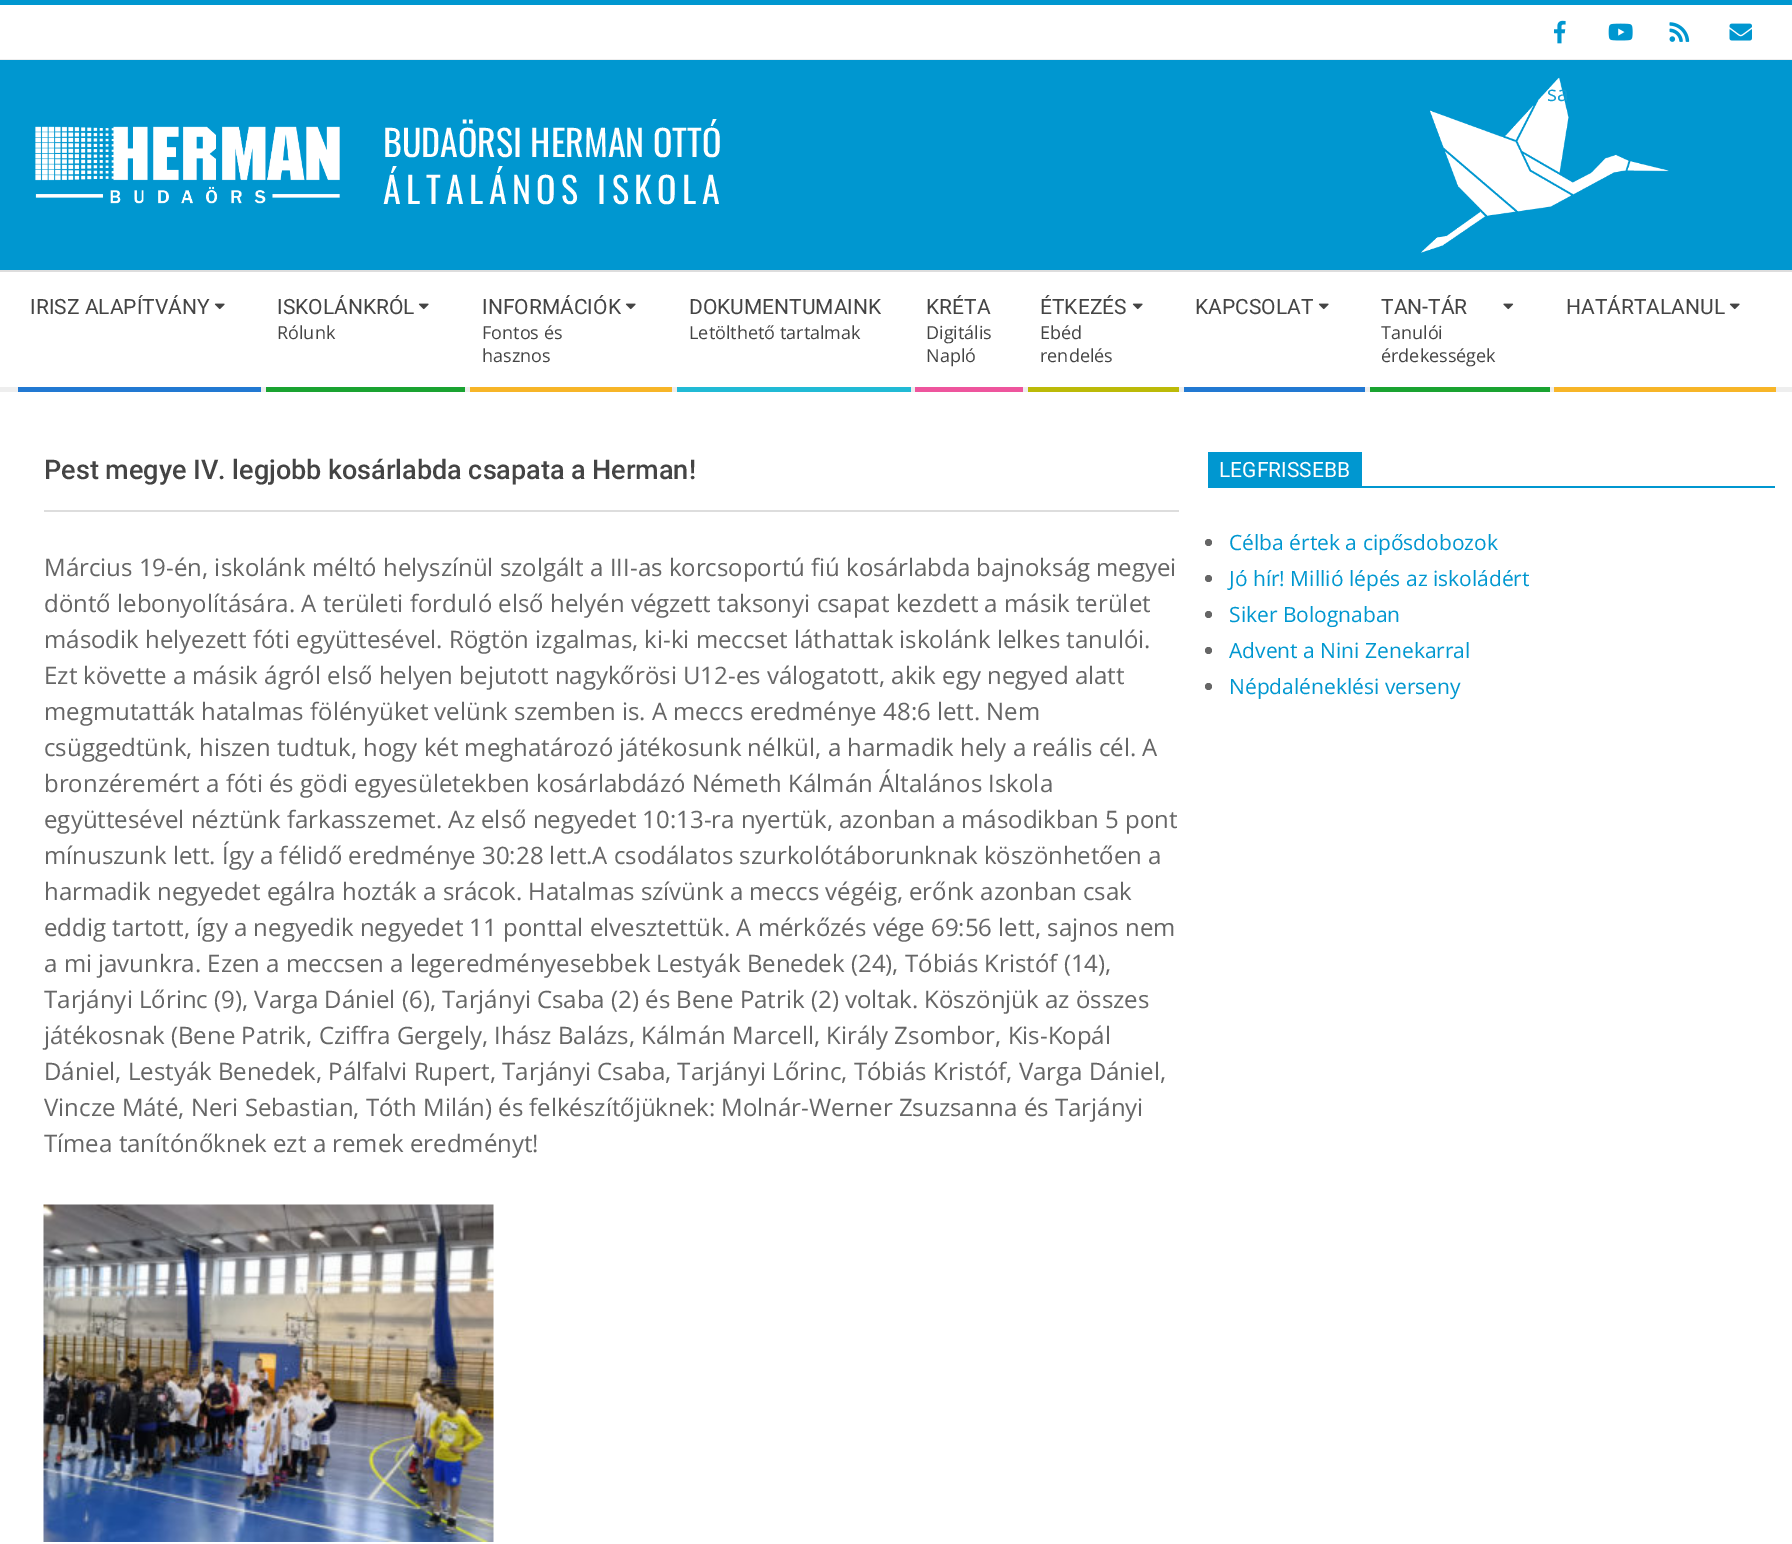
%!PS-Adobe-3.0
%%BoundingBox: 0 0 1792 1544
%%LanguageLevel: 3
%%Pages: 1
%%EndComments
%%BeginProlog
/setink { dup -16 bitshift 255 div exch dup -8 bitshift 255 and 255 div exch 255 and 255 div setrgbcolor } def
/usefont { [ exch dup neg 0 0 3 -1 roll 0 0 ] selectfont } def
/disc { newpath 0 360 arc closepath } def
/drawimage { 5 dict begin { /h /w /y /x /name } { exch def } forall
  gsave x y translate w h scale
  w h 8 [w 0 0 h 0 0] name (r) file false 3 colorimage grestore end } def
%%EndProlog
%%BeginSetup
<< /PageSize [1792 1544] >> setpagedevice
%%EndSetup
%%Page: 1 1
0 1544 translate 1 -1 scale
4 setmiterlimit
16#0097D0 setink
0 0 1792 1544 rectfill
16#FFFFFF setink
0 5 1792 54 rectfill
16#EEEEEE setink
0 59 1792 1 rectfill
(img1.raw) 1554 20 12 24 drawimage
(img2.raw) 1608 23 25 18 drawimage
(img3.raw) 1669 22 21 20 drawimage
(img4.raw) 1729 23 23 18 drawimage
16#DDDDDD setink
0 270 1792 2 rectfill
(img5.raw) 1421 77 248 176 drawimage
/OpenSans-Regular 21 usefont
16#0F9DD3 setink
1547 101 moveto (sa) show
(img6.raw) 35 126 305 78 drawimage
/Oswald-Regular 36 usefont
16#FFFFFF setink
383 157 moveto (BUDAÖRSI HERMAN OTTÓ) show
383 204 moveto 5.4 0 (ÁLTALÁNOS ISKOLA) ashow
0 272 1792 115 rectfill
16#EEEEEE setink
0 387 1792 5 rectfill
/Roboto-Regular 21 usefont
16#444444 setink
30 314 moveto (IRISZ ALAPÍTVÁNY) show
(img7.raw) 214 303 11 7 drawimage
16#2279D2 setink
18 387 243 5 rectfill
16#444444 setink
277 314 moveto (ISKOLÁNKRÓL) show
(img7.raw) 418 303 11 7 drawimage
/OpenSans-Regular 18 usefont
277 339 moveto (Rólunk) show
16#1AA331 setink
266 387 199 5 rectfill
/Roboto-Regular 21 usefont
16#444444 setink
482 314 moveto (INFORMÁCIÓK) show
(img7.raw) 625 303 11 7 drawimage
/OpenSans-Regular 18 usefont
482 339 moveto (Fontos és) show
482 362 moveto (hasznos) show
16#F7B528 setink
470 387 202 5 rectfill
/Roboto-Regular 21 usefont
16#444444 setink
689 314 moveto (DOKUMENTUMAINK) show
/OpenSans-Regular 18 usefont
689 339 moveto (Letölthető tartalmak) show
16#21BAD5 setink
677 387 234 5 rectfill
/Roboto-Regular 21 usefont
16#444444 setink
926 314 moveto (KRÉTA) show
/OpenSans-Regular 18 usefont
926 339 moveto (Digitális) show
926 362 moveto (Napló) show
16#EE559D setink
915 387 108 5 rectfill
/Roboto-Regular 21 usefont
16#444444 setink
1040 314 moveto (ÉTKEZÉS) show
(img7.raw) 1132 303 11 7 drawimage
/OpenSans-Regular 18 usefont
1040 339 moveto (Ebéd) show
1040 362 moveto (rendelés) show
16#BCBA08 setink
1028 387 151 5 rectfill
/Roboto-Regular 21 usefont
16#444444 setink
1195 314 moveto (KAPCSOLAT) show
(img7.raw) 1318 303 11 7 drawimage
16#2279D2 setink
1184 387 181 5 rectfill
16#444444 setink
1381 314 moveto (TAN-TÁR) show
(img8.raw) 1503 303 11 7 drawimage
/OpenSans-Regular 18 usefont
1381 339 moveto (Tanulói) show
1381 362 moveto (érdekességek) show
16#1AA331 setink
1370 387 180 5 rectfill
/Roboto-Regular 21 usefont
16#444444 setink
1566 314 moveto (HATÁRTALANUL) show
(img7.raw) 1729 303 11 7 drawimage
[
    [1554 387 222 5 16#F7B528]
    [0 392 1792 1152 16#FFFFFF]
    [44 510 1135 2 16#DDDDDD]
] { aload pop setink rectfill } forall
/Roboto-Medium 27 usefont
16#444444 setink
44 479 moveto (Pest megye IV. legjobb kosárlabda csapata a Herman!) show
/OpenSans-Regular 24 usefont
16#666666 setink
[
    [(Március 19-én, iskolánk méltó helyszínül szolgált a III-as korcsoportú fiú kosárlabda bajnokság megyei) 44 576]
    [(döntő lebonyolítására. A területi forduló első helyén végzett taksonyi csapat kezdett a másik terület) 44 612]
    [(második helyezett fóti együttesével. Rögtön izgalmas, ki-ki meccset láthattak iskolánk lelkes tanulói.) 44 648]
    [(Ezt követte a másik ágról első helyen bejutott nagykőrösi U12-es válogatott, akik egy negyed alatt) 44 684]
    [(megmutatták hatalmas fölényüket velünk szemben is. A meccs eredménye 48:6 lett. Nem) 44 720]
    [(csüggedtünk, hiszen tudtuk, hogy két meghatározó játékosunk nélkül, a harmadik hely a reális cél. A) 44 756]
    [(bronzéremért a fóti és gödi egyesületekben kosárlabdázó Németh Kálmán Általános Iskola) 44 792]
    [(együttesével néztünk farkasszemet. Az első negyedet 10:13-ra nyertük, azonban a másodikban 5 pont) 44 828]
    [(mínuszunk lett. Így a félidő eredménye 30:28 lett.A csodálatos szurkolótáborunknak köszönhetően a) 44 864]
    [(harmadik negyedet egálra hozták a srácok. Hatalmas szívünk a meccs végéig, erőnk azonban csak) 44 900]
    [(eddig tartott, így a negyedik negyedet 11 ponttal elvesztettük. A mérkőzés vége 69:56 lett, sajnos nem) 44 936]
    [(a mi javunkra. Ezen a meccsen a legeredményesebbek Lestyák Benedek \(24\), Tóbiás Kristóf \(14\),) 44 972]
    [(Tarjányi Lőrinc \(9\), Varga Dániel \(6\), Tarjányi Csaba \(2\) és Bene Patrik \(2\) voltak. Köszönjük az összes) 44 1008]
    [(játékosnak \(Bene Patrik, Cziffra Gergely, Ihász Balázs, Kálmán Marcell, Király Zsombor, Kis-Kopál) 44 1044]
    [(Dániel, Lestyák Benedek, Pálfalvi Rupert, Tarjányi Csaba, Tarjányi Lőrinc, Tóbiás Kristóf, Varga Dániel,) 44 1080]
    [(Vincze Máté, Neri Sebastian, Tóth Milán\) és felkészítőjüknek: Molnár-Werner Zsuzsanna és Tarjányi) 44 1116]
    [(Tímea tanítónőknek ezt a remek eredményt!) 44 1152]
] { aload pop moveto show } forall
(img9.raw) 43 1204 451 338 drawimage
16#0097D0 setink
1208 452 154 34 rectfill
/Roboto-Regular 21 usefont
16#FFFFFF setink
1219 477 moveto (LEGFRISSEBB) show
16#0097D0 setink
1208 486 567 2 rectfill
16#666666 setink
1208.5 542.5 3.5 disc fill
/OpenSans-Regular 21 usefont
16#0097D0 setink
1229 550 moveto (Célba értek a cipősdobozok) show
16#666666 setink
1208.5 578.5 3.5 disc fill
16#0097D0 setink
1229 586 moveto (Jó hír! Millió lépés az iskoládért) show
16#666666 setink
1208.5 614.5 3.5 disc fill
16#0097D0 setink
1229 622 moveto (Siker Bolognaban) show
16#666666 setink
1208.5 650.5 3.5 disc fill
16#0097D0 setink
1229 658 moveto (Advent a Nini Zenekarral) show
16#666666 setink
1208.5 686.5 3.5 disc fill
16#0097D0 setink
1229 694 moveto (Népdaléneklési verseny) show
showpage
%%EOF
